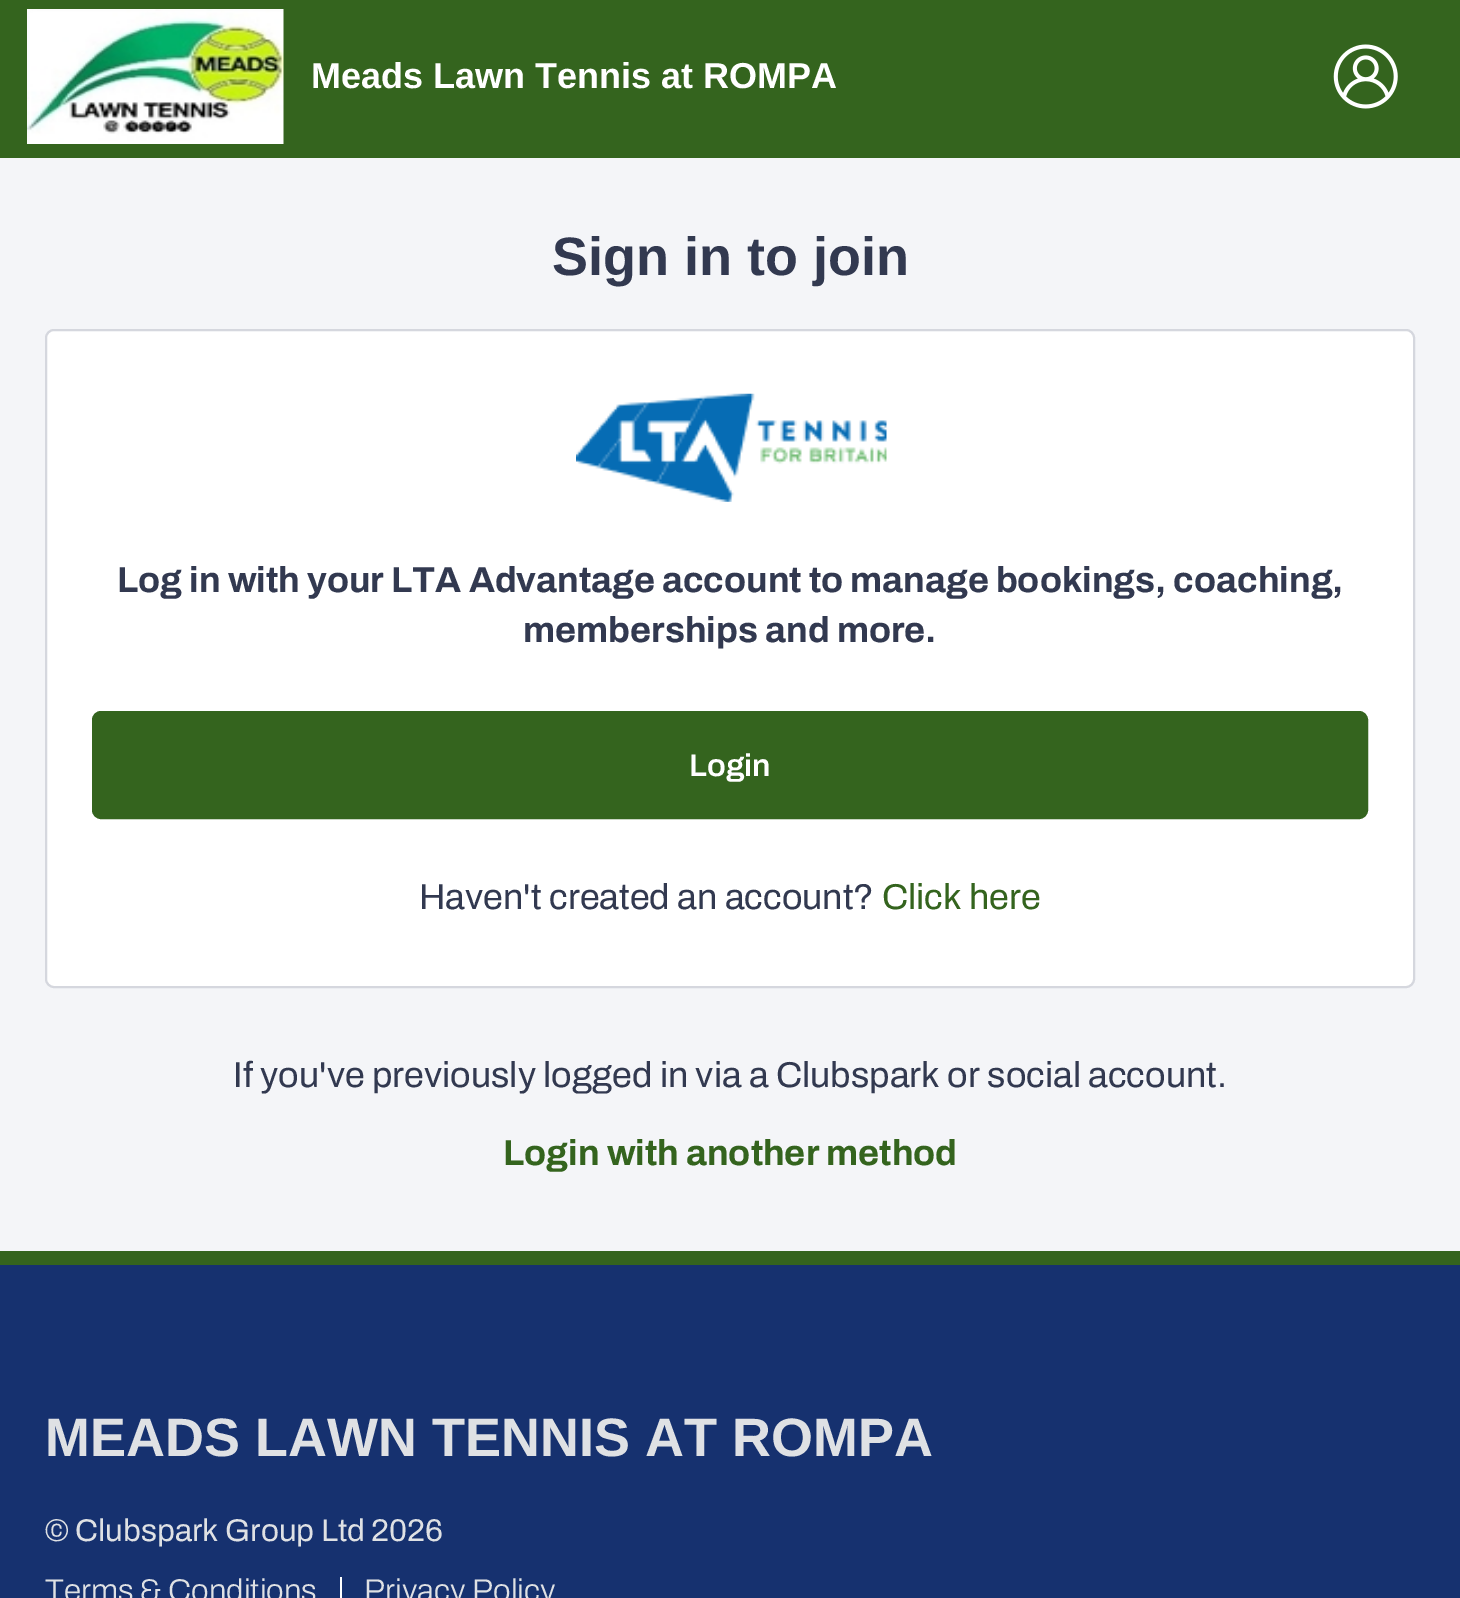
%!PS-Adobe-3.0
%%BoundingBox: 0 0 1460 1598
%%LanguageLevel: 3
%%Pages: 1
%%EndComments
%%BeginProlog
/setink { dup -16 bitshift 255 div exch dup -8 bitshift 255 and 255 div exch 255 and 255 div setrgbcolor } def
/usefont { [ exch dup neg 0 0 3 -1 roll 0 0 ] selectfont } def
/rrect { 5 dict begin { /r /h /w /y /x } { exch def } forall
  x r add y moveto x w add y 2 copy h add r arct x w add y h add x 1 index r arct
  x y h add x y r arct x y 2 copy exch w add exch r arct closepath end } def
/drawimage { 5 dict begin { /h /w /y /x /name } { exch def } forall
  gsave x y translate w h scale
  w h 8 [w 0 0 h 0 0] name (r) file false 3 colorimage grestore end } def
%%EndProlog
%%BeginSetup
<< /PageSize [1460 1598] >> setpagedevice
%%EndSetup
%%Page: 1 1
0 1598 translate 1 -1 scale
4 setmiterlimit
16#34641E setink
0 0 1460 1598 rectfill
(img1.raw) 27 9 257 135 drawimage
/LiberationSans-Bold 36 usefont
16#FFFFFF setink
311 88 moveto (Meads Lawn Tennis at ROMPA) show
(img2.raw) 1333 44 65 65 drawimage
16#F4F5F8 setink
0 158 1460 1093 rectfill
/LiberationSans-Bold 54 usefont
16#323950 setink
552 275 moveto (Sign in to join) show
16#FFFFFF setink
46 330 1368 657 8 rrect gsave fill grestore
16#D5D7DE setink
2 setlinewidth
stroke
(img3.raw) 576 393 311 109 drawimage
/Archivo-Bold 36 usefont
16#323950 setink
117 592 moveto (Log in with your LTA Advantage account to manage bookings, coaching,) show
523 642 moveto (memberships and more.) show
16#34641E setink
93 712 1274 106 8 rrect gsave fill grestore
stroke
/Archivo-SemiBold 31.5 usefont
16#FFFFFF setink
689 776 moveto (Login) show
/Archivo-Regular 36 usefont
16#323950 setink
419 909 moveto (Haven't created an account?) show
16#34641E setink
882 909 moveto (Click here) show
16#323950 setink
233 1087 moveto (If you've previously logged in via a Clubspark or social account.) show
/Archivo-Bold 36 usefont
16#34641E setink
503 1165 moveto (Login with another method) show
16#16316F setink
0 1265 1460 333 rectfill
/LiberationSans-Bold 54 usefont
16#DFE1E4 setink
45 1456 moveto (MEADS LAWN TENNIS AT ROMPA) show
/Archivo-Regular 31.5 usefont
45 1541 moveto (© Clubspark Group Ltd 2026) show
16#FFFFFF setink
340 1577 2 21 rectfill
/Archivo-Light 31.5 usefont
16#DFE1E4 setink
45 1601 moveto (Terms & Conditions) show
364 1601 moveto (Privacy Policy) show
showpage
%%EOF
